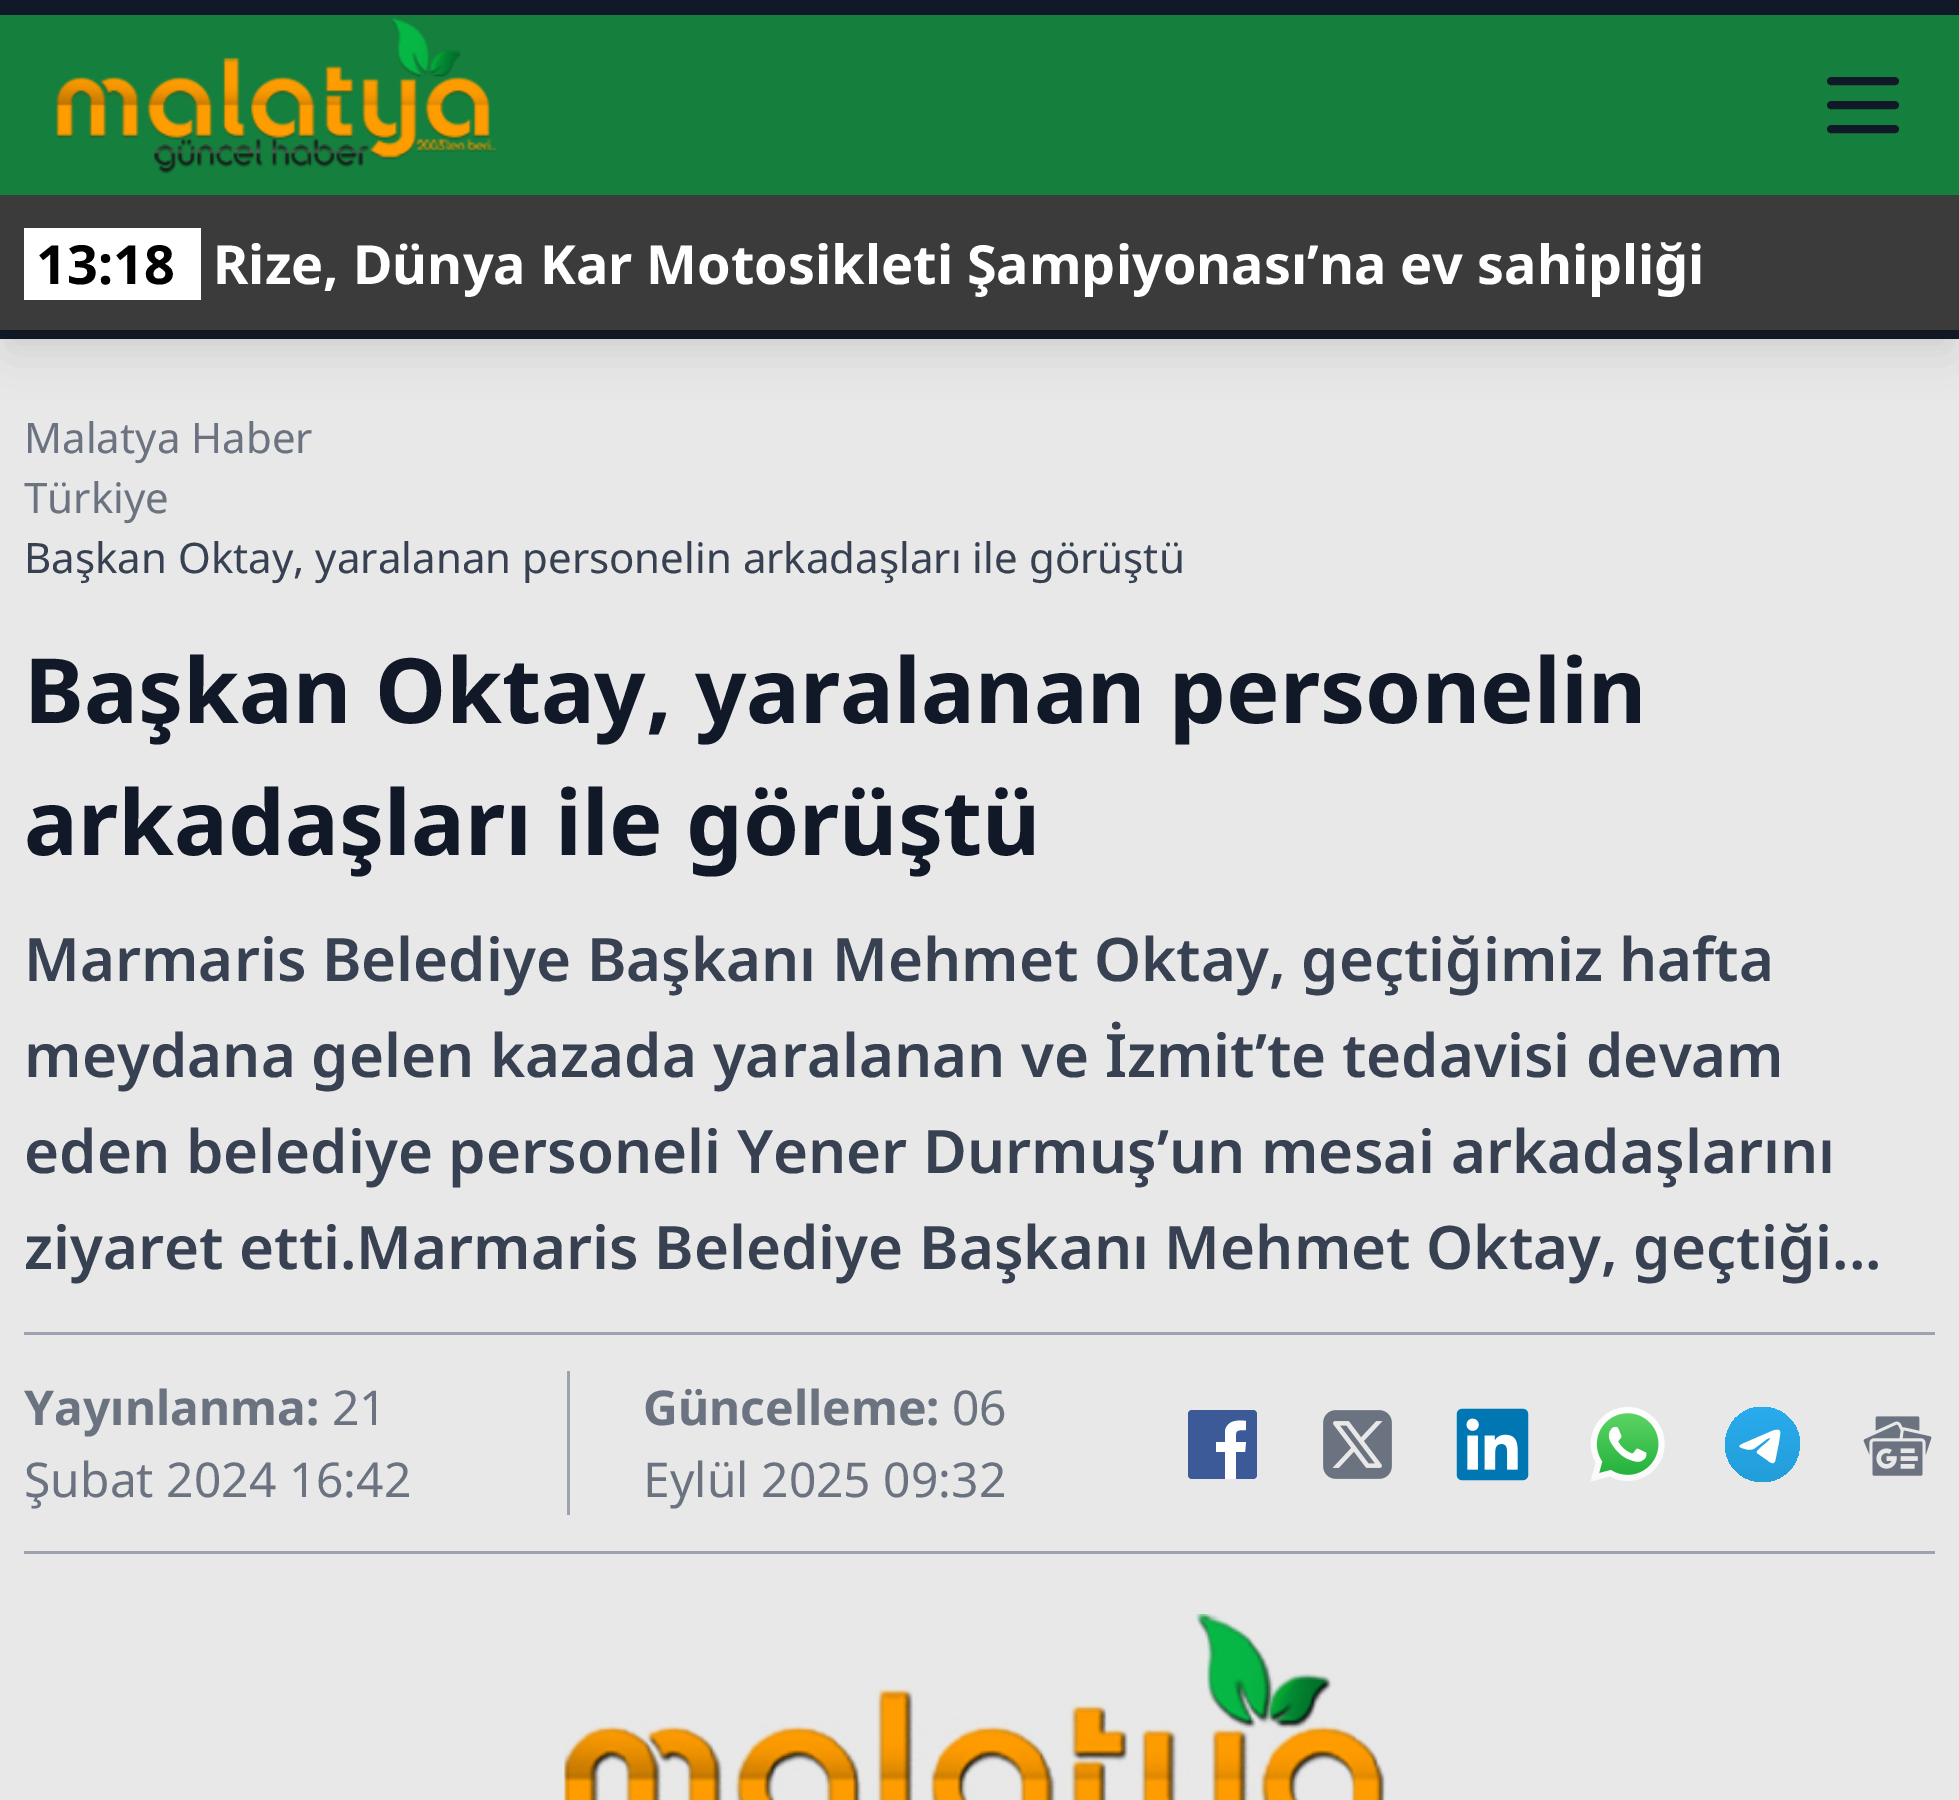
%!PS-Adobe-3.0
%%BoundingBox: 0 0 1959 1800
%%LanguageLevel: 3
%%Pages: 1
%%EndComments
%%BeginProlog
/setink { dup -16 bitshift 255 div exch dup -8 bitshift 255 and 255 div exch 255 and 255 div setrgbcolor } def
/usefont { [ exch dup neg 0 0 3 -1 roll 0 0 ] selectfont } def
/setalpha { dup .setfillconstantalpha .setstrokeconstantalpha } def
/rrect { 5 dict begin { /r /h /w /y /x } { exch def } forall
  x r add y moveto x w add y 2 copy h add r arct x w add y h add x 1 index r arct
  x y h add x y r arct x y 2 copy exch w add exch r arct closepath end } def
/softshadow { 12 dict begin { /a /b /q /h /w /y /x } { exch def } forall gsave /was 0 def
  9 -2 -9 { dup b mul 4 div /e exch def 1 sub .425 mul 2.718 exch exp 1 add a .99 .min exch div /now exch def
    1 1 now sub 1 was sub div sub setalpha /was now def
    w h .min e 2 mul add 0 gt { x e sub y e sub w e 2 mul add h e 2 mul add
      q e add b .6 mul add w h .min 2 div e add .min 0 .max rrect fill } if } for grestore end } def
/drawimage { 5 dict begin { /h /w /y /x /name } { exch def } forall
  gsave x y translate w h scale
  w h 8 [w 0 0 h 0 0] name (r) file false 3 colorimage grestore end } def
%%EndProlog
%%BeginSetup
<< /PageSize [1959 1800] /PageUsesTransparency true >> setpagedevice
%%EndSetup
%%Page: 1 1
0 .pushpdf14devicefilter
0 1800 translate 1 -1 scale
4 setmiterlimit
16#E8E8E8 setink
0 0 1959 1800 rectfill
[
    [0 15 1959 180 16#15803D]
    [0 0 1959 15 16#111827]
    [0 330 1959 9 16#111827]
] { aload pop setink rectfill } forall
16#000000 setink
9 234 1941 117 0 22.5 0.1 softshadow
(img1.raw) 56 18 441 156 drawimage
16#111827 setink
8 setlinewidth
1 setlinecap
1 setlinejoin
1831 81 moveto 1895 81 lineto 1831 105 moveto 1895 105 lineto 1831 129 moveto 1895 129 lineto stroke
16#000000 setink
12 219 1935 111 0 9 0.1 softshadow
16#3B3B3B setink
0 195 1959 135 rectfill
16#FFFFFF setink
24 228 177 72 rectfill
/NotoSans-Bold 54 usefont
16#000000 setink
36 284 moveto (13:18) show
16#FFFFFF setink
213 284 moveto (Rize, Dünya Kar Motosikleti Şampiyonası’na ev sahipliği) show
/NotoSans-Regular 42 usefont
16#6B7280 setink
24 453 moveto (Malatya Haber) show
24 513 moveto (Türkiye) show
16#374151 setink
24 573 moveto (Başkan Oktay, yaralanan personelin arkadaşları ile görüştü) show
/NotoSans-Bold 90 usefont
16#111827 setink
24 723 moveto (Başkan Oktay, yaralanan personelin) show
24 855 moveto (arkadaşları ile görüştü) show
/NotoSans-SemiBold 60 usefont
16#374151 setink
[
    [(Marmaris Belediye Başkanı Mehmet Oktay, geçtiğimiz hafta) 24 981]
    [(meydana gelen kazada yaralanan ve İzmit’te tedavisi devam) 24 1077]
    [(eden belediye personeli Yener Durmuş’un mesai arkadaşlarını) 24 1173]
    [(ziyaret etti.Marmaris Belediye Başkanı Mehmet Oktay, geçtiği...) 24 1269]
] { aload pop moveto show } forall
[
    [24 1332 1911 3 16#9CA3AF]
    [24 1551 1911 3 16#9CA3AF]
    [567 1371 3 144 16#9CA3AF]
] { aload pop setink rectfill } forall
/NotoSans-Bold 48 usefont
16#6B7280 setink
24 1425 moveto (Yayınlanma:) show
/NotoSans-Regular 48 usefont
332 1425 moveto (21) show
24 1497 moveto (Şubat 2024 16:42) show
/NotoSans-Bold 48 usefont
643 1425 moveto (Güncelleme:) show
/NotoSans-Regular 48 usefont
952 1425 moveto (06) show
643 1497 moveto (Eylül 2025 09:32) show
16#3D5A98 setink
1188 1410 69 69 4 rrect fill
16#FFFFFF setink
1236 1479 moveto 1236 1452 lineto 1245 1452 lineto 1246 1442 lineto 1236 1442 lineto 1236 1431 1234 1430 1246 1430 curveto 1246 1421 lineto 1238 1420 1227 1420 1225 1431 curveto 1225 1442 lineto 1216 1442 lineto 1216 1452 lineto 1225 1452 lineto 1225 1479 lineto closepath fill
(img2.raw) 1323 1410 69 69 drawimage
(img3.raw) 1456 1408 73 73 drawimage
(img4.raw) 1590 1407 75 75 drawimage
gsave 1762 1407 moveto 1726 1407 1711 1455 1742 1476 curveto 1748 1480 1755 1482 1762 1482 curveto 1799 1482 1814 1434 1783 1413 curveto 1777 1409 1770 1407 1762 1407 curveto clip newpath
<< /ShadingType 2 /ColorSpace /DeviceRGB /Coords [1763 1407 1763 1482] /Extend [true true] /Function << /FunctionType 2 /Domain [0 1] /C0 [0.165 0.671 0.933] /C1 [0.133 0.62 0.851] /N 1 >> >> shfill grestore
1742 1444 moveto 1772 1431 lineto 1783 1427 1780 1433 1779 1442 curveto 1776 1457 lineto 1775 1464 1773 1465 1767 1460 curveto 1757 1453 lineto 1755 1450 1771 1441 1770 1438 curveto 1769 1437 1763 1442 1763 1442 curveto 1753 1449 1753 1452 1742 1448 curveto 1739 1447 1738 1446 1742 1444 curveto fill
(img5.raw) 1863 1416 69 60 drawimage
(img6.raw) 564 1614 822 186 drawimage
.poppdf14devicefilter showpage
%%EOF
